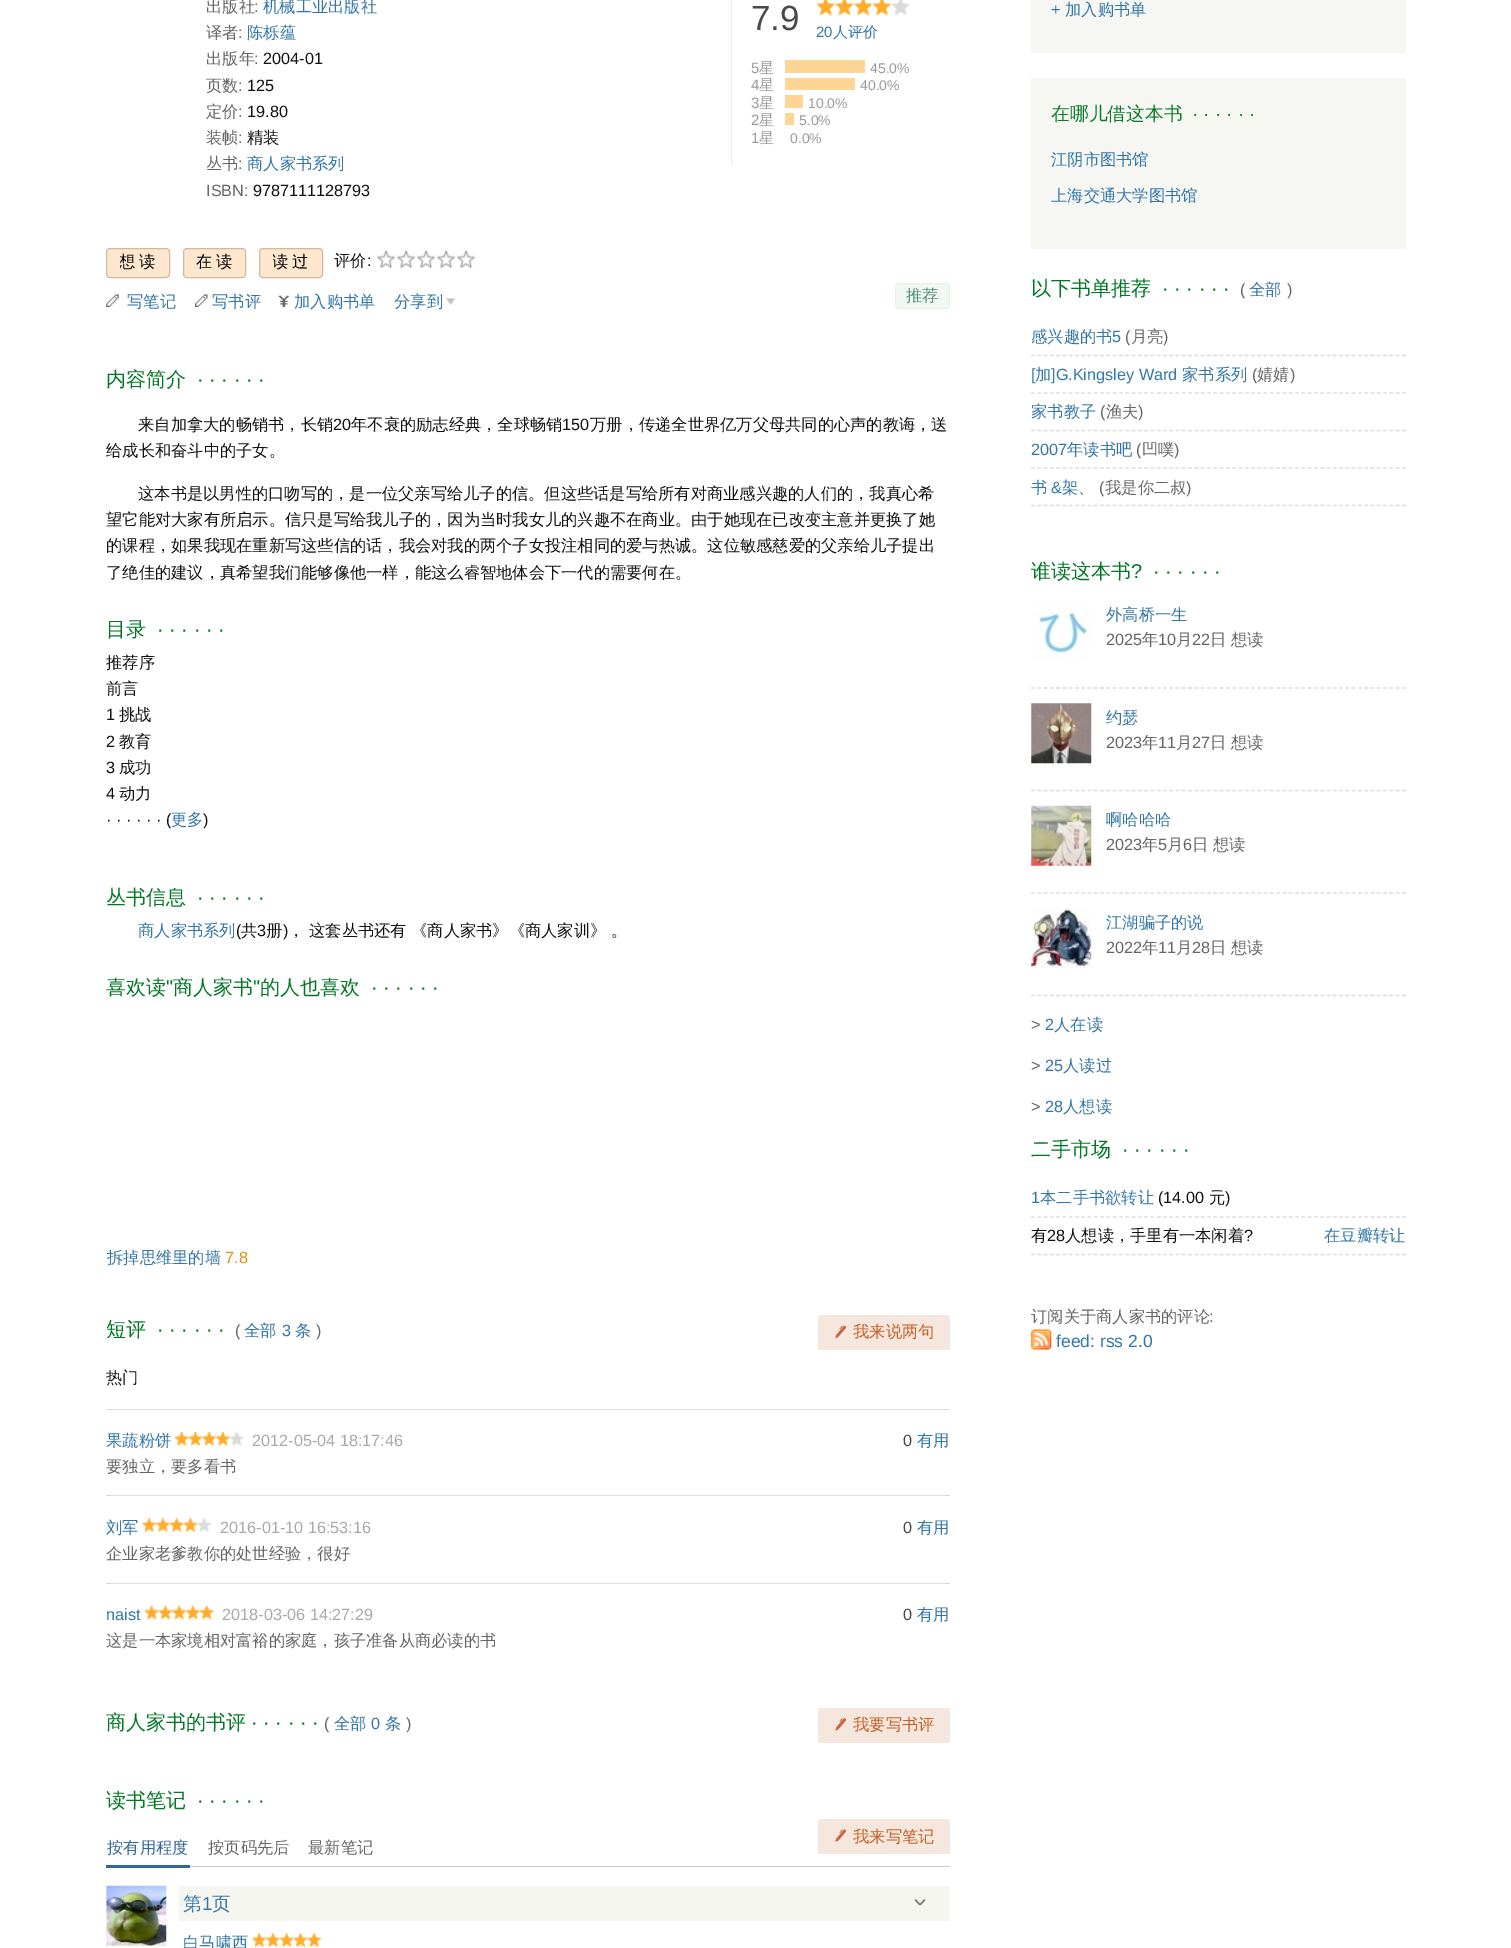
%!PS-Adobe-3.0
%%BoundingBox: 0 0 1511 1948
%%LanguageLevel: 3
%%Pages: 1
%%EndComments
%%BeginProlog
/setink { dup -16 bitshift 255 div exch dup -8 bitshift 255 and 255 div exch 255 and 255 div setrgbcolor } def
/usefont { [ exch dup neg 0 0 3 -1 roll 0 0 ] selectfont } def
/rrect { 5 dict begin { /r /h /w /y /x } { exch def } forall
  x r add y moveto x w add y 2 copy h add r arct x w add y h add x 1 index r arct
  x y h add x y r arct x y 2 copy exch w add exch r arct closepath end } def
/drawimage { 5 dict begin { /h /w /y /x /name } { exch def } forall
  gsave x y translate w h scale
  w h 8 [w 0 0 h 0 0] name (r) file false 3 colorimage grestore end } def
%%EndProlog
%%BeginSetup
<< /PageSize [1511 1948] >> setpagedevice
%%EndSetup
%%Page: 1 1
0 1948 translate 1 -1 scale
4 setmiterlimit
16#FFFFFF setink
0 0 1511 1948 rectfill
/WenQuanYiZenHei-Medium 16.25 usefont
16#666666 setink
206 12 moveto (出版社) show
/LiberationSans-Regular 16.25 usefont
254 12 moveto (:) show
/WenQuanYiZenHei-Medium 16.25 usefont
16#3377AA setink
263 12 moveto (机械工业出版社) show
16#666666 setink
206 38 moveto (译者) show
/LiberationSans-Regular 16.25 usefont
238 38 moveto (:) show
/WenQuanYiZenHei-Medium 16.25 usefont
16#3377AA setink
247 38 moveto (陈栎蕴) show
16#666666 setink
206 64 moveto (出版年) show
/LiberationSans-Regular 16.25 usefont
254 64 moveto (:) show
16#111111 setink
263 64 moveto (2004-01) show
/WenQuanYiZenHei-Medium 16.25 usefont
16#666666 setink
206 91 moveto (页数) show
/LiberationSans-Regular 16.25 usefont
238 91 moveto (:) show
16#111111 setink
247 91 moveto (125) show
/WenQuanYiZenHei-Medium 16.25 usefont
16#666666 setink
206 117 moveto (定价) show
/LiberationSans-Regular 16.25 usefont
238 117 moveto (:) show
16#111111 setink
247 117 moveto (19.80) show
/WenQuanYiZenHei-Medium 16.25 usefont
16#666666 setink
206 143 moveto (装帧) show
/LiberationSans-Regular 16.25 usefont
238 143 moveto (:) show
/WenQuanYiZenHei-Medium 16.25 usefont
16#111111 setink
247 143 moveto (精装) show
16#666666 setink
206 169 moveto (丛书) show
/LiberationSans-Regular 16.25 usefont
238 169 moveto (:) show
/WenQuanYiZenHei-Medium 16.25 usefont
16#3377AA setink
247 169 moveto (商人家书系列) show
/LiberationSans-Regular 16.25 usefont
16#666666 setink
206 196 moveto (ISBN:) show
16#111111 setink
253 196 moveto (9787111128793) show
16#EAEAEA setink
731 0 1 165 rectfill
/LiberationSans-Regular 35 usefont
16#494949 setink
751 30 moveto (7.9) show
(img1.raw) 816 0 94 16 drawimage
/LiberationSans-Regular 15 usefont
16#3377AA setink
816 37 moveto (20) show
/WenQuanYiZenHei-Medium 15 usefont
833 37 moveto (人评价) show
/LiberationSans-Regular 15 usefont
16#9B9B9B setink
751 73 moveto (5) show
/WenQuanYiZenHei-Medium 15 usefont
759 73 moveto (星) show
16#FFD596 setink
785 60 80 13 rectfill
/LiberationSans-Regular 14 usefont
16#9B9B9B setink
870 73 moveto (45.0%) show
/LiberationSans-Regular 15 usefont
751 90 moveto (4) show
/WenQuanYiZenHei-Medium 15 usefont
759 90 moveto (星) show
16#FFD596 setink
785 78 70 12 rectfill
/LiberationSans-Regular 14 usefont
16#9B9B9B setink
860 90 moveto (40.0%) show
/LiberationSans-Regular 15 usefont
751 108 moveto (3) show
/WenQuanYiZenHei-Medium 15 usefont
759 108 moveto (星) show
16#FFD596 setink
785 95 18 13 rectfill
/LiberationSans-Regular 14 usefont
16#9B9B9B setink
808 108 moveto (10.0%) show
/LiberationSans-Regular 15 usefont
751 125 moveto (2) show
/WenQuanYiZenHei-Medium 15 usefont
759 125 moveto (星) show
16#FFD596 setink
785 113 9 12 rectfill
/LiberationSans-Regular 14 usefont
16#9B9B9B setink
799 125 moveto (5.0%) show
/LiberationSans-Regular 15 usefont
751 143 moveto (1) show
/WenQuanYiZenHei-Medium 15 usefont
759 143 moveto (星) show
/LiberationSans-Regular 14 usefont
790 143 moveto (0.0%) show
16#FFE6CE setink
106.5 248.5 63 29 3.5 rrect gsave fill grestore
16#D6B79D setink
stroke
gsave
120 251 40 23 rectclip
/WenQuanYiZenHei-Medium 16.25 usefont
16#000000 setink
119 267 moveto 4 0 (想读) ashow
grestore
16#FFE6CE setink
183.5 248.5 62 29 3.5 rrect gsave fill grestore
16#D6B79D setink
stroke
/WenQuanYiZenHei-Medium 16.25 usefont
16#000000 setink
196 267 moveto 4 0 (在读) ashow
16#FFE6CE setink
259.5 248.5 63 29 3.5 rrect gsave fill grestore
16#D6B79D setink
stroke
gsave
273 251 40 23 rectclip
16#000000 setink
272 267 moveto 4 0 (读过) ashow
grestore
16#111111 setink
334 266 moveto (评价) show
/LiberationSans-Regular 16.25 usefont
367 266 moveto (:) show
(img2.raw) 377 249 19 20 drawimage
(img2.raw) 397 249 19 20 drawimage
(img2.raw) 417 249 19 20 drawimage
(img2.raw) 437 249 19 20 drawimage
(img2.raw) 457 249 19 20 drawimage
(img3.raw) 106 294 13 13 drawimage
/WenQuanYiZenHei-Medium 16.25 usefont
16#3377AA setink
127 307 moveto (写笔记) show
(img4.raw) 195 294 13 13 drawimage
212 307 moveto (写书评) show
(img5.raw) 278 295 11 12 drawimage
294 307 moveto (加入购书单) show
394 307 moveto (分享到) show
(img6.raw) 446 298 9 7 drawimage
16#F2F8F2 setink
895.5 283.5 54 25 3.5 rrect gsave fill grestore
16#E3F1ED setink
stroke
16#4F946E setink
906 301 moveto (推荐) show
/WenQuanYiZenHei-Medium 20 usefont
16#007722 setink
106 386 moveto (内容简介) show
/LiberationSans-Regular 20 usefont
197 386 moveto (· · · · · ·) show
/WenQuanYiZenHei-Medium 16.25 usefont
16#111111 setink
138 430 moveto (来自加拿大的畅销书，长销) show
/LiberationSans-Regular 16.25 usefont
333 430 moveto (20) show
/WenQuanYiZenHei-Medium 16.25 usefont
351 430 moveto (年不衰的励志经典，全球畅销) show
/LiberationSans-Regular 16.25 usefont
562 430 moveto (150) show
/WenQuanYiZenHei-Medium 16.25 usefont
[
    [(万册，传递全世界亿万父母共同的心声的教诲，送) 590 430]
    [(给成长和奋斗中的子女。) 106 456]
    [(这本书是以男性的口吻写的，是一位父亲写给儿子的信。但这些话是写给所有对商业感兴趣的人们的，我真心希) 138 499]
    [(望它能对大家有所启示。信只是写给我儿子的，因为当时我女儿的兴趣不在商业。由于她现在已改变主意并更换了她) 106 525]
    [(的课程，如果我现在重新写这些信的话，我会对我的两个子女投注相同的爱与热诚。这位敏感慈爱的父亲给儿子提出) 106 551]
    [(了绝佳的建议，真希望我们能够像他一样，能这么睿智地体会下一代的需要何在。) 106 578]
] { aload pop moveto show } forall
/WenQuanYiZenHei-Medium 20 usefont
16#007722 setink
106 636 moveto (目录) show
/LiberationSans-Regular 20 usefont
157 636 moveto (· · · · · ·) show
/WenQuanYiZenHei-Medium 16.25 usefont
16#111111 setink
106 668 moveto (推荐序) show
106 694 moveto (前言) show
/LiberationSans-Regular 16.25 usefont
106 720 moveto (1) show
/WenQuanYiZenHei-Medium 16.25 usefont
119 720 moveto (挑战) show
/LiberationSans-Regular 16.25 usefont
106 747 moveto (2) show
/WenQuanYiZenHei-Medium 16.25 usefont
119 747 moveto (教育) show
/LiberationSans-Regular 16.25 usefont
106 773 moveto (3) show
/WenQuanYiZenHei-Medium 16.25 usefont
119 773 moveto (成功) show
/LiberationSans-Regular 16.25 usefont
106 799 moveto (4) show
/WenQuanYiZenHei-Medium 16.25 usefont
119 799 moveto (动力) show
/LiberationSans-Regular 16.25 usefont
106 825 moveto (· · · · · · \() show
/WenQuanYiZenHei-Medium 16.25 usefont
16#3377AA setink
171 825 moveto (更多) show
/LiberationSans-Regular 16.25 usefont
16#111111 setink
203 825 moveto (\)) show
/WenQuanYiZenHei-Medium 20 usefont
16#007722 setink
106 904 moveto (丛书信息) show
/LiberationSans-Regular 20 usefont
197 904 moveto (· · · · · ·) show
/WenQuanYiZenHei-Medium 16.25 usefont
16#3377AA setink
138 936 moveto (商人家书系列) show
/LiberationSans-Regular 16.25 usefont
16#111111 setink
236 936 moveto (\() show
/WenQuanYiZenHei-Medium 16.25 usefont
241 936 moveto (共) show
/LiberationSans-Regular 16.25 usefont
257 936 moveto (3) show
/WenQuanYiZenHei-Medium 16.25 usefont
266 936 moveto (册) show
/LiberationSans-Regular 16.25 usefont
283 936 moveto (\)) show
/WenQuanYiZenHei-Medium 16.25 usefont
288 936 moveto (， 这套丛书还有) show
411 936 moveto (《商人家书》《商人家训》 。) show
/WenQuanYiZenHei-Medium 20 usefont
16#007722 setink
106 994 moveto (喜欢读) show
/LiberationSans-Regular 20 usefont
166 994 moveto (") show
/WenQuanYiZenHei-Medium 20 usefont
173 994 moveto (商人家书) show
/LiberationSans-Regular 20 usefont
253 994 moveto (") show
/WenQuanYiZenHei-Medium 20 usefont
260 994 moveto (的人也喜欢) show
/LiberationSans-Regular 20 usefont
371 994 moveto (· · · · · ·) show
/WenQuanYiZenHei-Medium 16.25 usefont
16#3377AA setink
107 1263 moveto (拆掉思维里的墙) show
/LiberationSans-Regular 16.25 usefont
16#E09015 setink
225 1263 moveto (7.8) show
/WenQuanYiZenHei-Medium 20 usefont
16#007722 setink
106 1336 moveto (短评) show
/LiberationSans-Regular 20 usefont
157 1336 moveto (· · · · · ·) show
/LiberationSans-Regular 16.25 usefont
16#666666 setink
235 1336 moveto (\() show
/WenQuanYiZenHei-Medium 16.25 usefont
16#3377AA setink
244 1336 moveto (全部) show
/LiberationSans-Regular 16.25 usefont
282 1336 moveto (3) show
/WenQuanYiZenHei-Medium 16.25 usefont
295 1336 moveto (条) show
/LiberationSans-Regular 16.25 usefont
16#666666 setink
316 1336 moveto (\)) show
16#F6E7DE setink
818 1315 132 35 2.5 rrect fill
(img7.raw) 835 1325 12 13 drawimage
/WenQuanYiZenHei-Medium 16.25 usefont
16#C65E24 setink
853 1337 moveto (我来说两句) show
16#111111 setink
106 1383 moveto (热门) show
16#DDDDDD setink
106 1409 844 1 0.5 rrect fill
16#3377AA setink
106 1446 moveto (果蔬粉饼) show
(img8.raw) 175 1432 69 14 drawimage
/LiberationSans-Regular 16.25 usefont
16#AAAAAA setink
252 1446 moveto (2012-05-04 18:17:46) show
16#494949 setink
903 1446 moveto (0) show
/WenQuanYiZenHei-Medium 16.25 usefont
16#3377AA setink
917 1446 moveto (有用) show
16#666666 setink
106 1472 moveto (要独立，要多看书) show
16#DDDDDD setink
106 1495 844 1 0.5 rrect fill
16#3377AA setink
106 1533 moveto (刘军) show
(img9.raw) 142 1518 70 14 drawimage
/LiberationSans-Regular 16.25 usefont
16#AAAAAA setink
220 1533 moveto (2016-01-10 16:53:16) show
16#494949 setink
903 1533 moveto (0) show
/WenQuanYiZenHei-Medium 16.25 usefont
16#3377AA setink
917 1533 moveto (有用) show
16#666666 setink
106 1559 moveto (企业家老爹教你的处世经验，很好) show
16#DDDDDD setink
106 1583 844 1 0.5 rrect fill
/LiberationSans-Regular 16.25 usefont
16#3377AA setink
106 1620 moveto (naist) show
(img10.raw) 145 1605 69 15 drawimage
16#AAAAAA setink
222 1620 moveto (2018-03-06 14:27:29) show
16#494949 setink
903 1620 moveto (0) show
/WenQuanYiZenHei-Medium 16.25 usefont
16#3377AA setink
917 1620 moveto (有用) show
16#666666 setink
106 1646 moveto (这是一本家境相对富裕的家庭，孩子准备从商必读的书) show
/WenQuanYiZenHei-Medium 20 usefont
16#007722 setink
106 1729 moveto (商人家书的书评) show
/LiberationSans-Regular 20 usefont
251 1729 moveto (· · · · · ·) show
/LiberationSans-Regular 16.25 usefont
16#666666 setink
324 1729 moveto (\() show
/WenQuanYiZenHei-Medium 16.25 usefont
16#3377AA setink
334 1729 moveto (全部) show
/LiberationSans-Regular 16.25 usefont
371 1729 moveto (0) show
/WenQuanYiZenHei-Medium 16.25 usefont
385 1729 moveto (条) show
/LiberationSans-Regular 16.25 usefont
16#666666 setink
406 1729 moveto (\)) show
16#F6E7DE setink
818 1708 132 35 2.5 rrect fill
(img11.raw) 835 1718 12 13 drawimage
/WenQuanYiZenHei-Medium 16.25 usefont
16#C65E24 setink
853 1730 moveto (我要写书评) show
/WenQuanYiZenHei-Medium 20 usefont
16#007722 setink
106 1807 moveto (读书笔记) show
/LiberationSans-Regular 20 usefont
197 1807 moveto (· · · · · ·) show
16#F6E7DE setink
818 1819 132 35 2.5 rrect fill
(img12.raw) 835 1829 12 13 drawimage
/WenQuanYiZenHei-Medium 16.25 usefont
16#C65E24 setink
853 1842 moveto (我来写笔记) show
16#CCCCCC setink
190 1866 760 1 rectfill
16#336699 setink
106 1865 84 3 rectfill
107 1853 moveto (按有用程度) show
16#666666 setink
208 1853 moveto (按页码先后) show
308 1853 moveto (最新笔记) show
(img13.raw) 106 1885 61 61 drawimage
16#F6F6F1 setink
179 1886 771 35 rectfill
/WenQuanYiZenHei-Medium 18.75 usefont
16#3377AA setink
183 1910 moveto (第) show
/LiberationSans-Regular 18.75 usefont
202 1910 moveto (1) show
/WenQuanYiZenHei-Medium 18.75 usefont
212 1910 moveto (页) show
16#818181 setink
1.6 setlinewidth
1 setlinecap
1 setlinejoin
915.5 1900 moveto 921.5 1906 918.5 1906 924.5 1900 curveto stroke
/WenQuanYiZenHei-Medium 16.25 usefont
16#3377AA setink
183 1948 moveto (白马啸西) show
(img14.raw) 252 1933 70 14 drawimage
16#F6F6F2 setink
1031 0 375 53 rectfill
/LiberationSans-Regular 16.25 usefont
16#3377AA setink
1051 15 moveto (+) show
/WenQuanYiZenHei-Medium 16.25 usefont
1065 15 moveto (加入购书单) show
16#F6F6F2 setink
1031 78 375 171 rectfill
/WenQuanYiZenHei-Medium 18.75 usefont
16#0B7C2A setink
1051 120 moveto (在哪儿借这本书) show
/LiberationSans-Regular 18.75 usefont
1192 120 moveto (· · · · · ·) show
/WenQuanYiZenHei-Medium 16.25 usefont
16#3377AA setink
1051 165 moveto (江阴市图书馆) show
1051 201 moveto (上海交通大学图书馆) show
/WenQuanYiZenHei-Medium 20 usefont
16#007722 setink
1031 295 moveto (以下书单推荐) show
/LiberationSans-Regular 20 usefont
1162 295 moveto (· · · · · ·) show
/LiberationSans-Regular 16.25 usefont
16#666666 setink
1240 295 moveto (\() show
/WenQuanYiZenHei-Medium 16.25 usefont
16#3377AA setink
1249 295 moveto (全部) show
/LiberationSans-Regular 16.25 usefont
16#666666 setink
1287 295 moveto (\)) show
16#DDDDDD setink
1.2 setlinewidth
0 setlinecap
0 setlinejoin
[3.75 2.54] 0 setdash
1031 355.5 moveto 1406 355.5 lineto stroke
/WenQuanYiZenHei-Medium 16.25 usefont
16#3377AA setink
1031 342 moveto (感兴趣的书) show
/LiberationSans-Regular 16.25 usefont
1112 342 moveto (5) show
16#666666 setink
1125 342 moveto (\() show
/WenQuanYiZenHei-Medium 16.25 usefont
1131 342 moveto (月亮) show
/LiberationSans-Regular 16.25 usefont
1163 342 moveto (\)) show
16#DDDDDD setink
1031 393 moveto 1406 393 lineto stroke
16#3377AA setink
1031 380 moveto ([) show
/WenQuanYiZenHei-Medium 16.25 usefont
1035 380 moveto (加) show
/LiberationSans-Regular 16.25 usefont
1051 380 moveto (]G.Kingsley Ward) show
/WenQuanYiZenHei-Medium 16.25 usefont
1182 380 moveto (家书系列) show
/LiberationSans-Regular 16.25 usefont
16#666666 setink
1252 380 moveto (\() show
/WenQuanYiZenHei-Medium 16.25 usefont
1257 380 moveto (婧婧) show
/LiberationSans-Regular 16.25 usefont
1290 380 moveto (\)) show
16#DDDDDD setink
1031 430.5 moveto 1406 430.5 lineto stroke
/WenQuanYiZenHei-Medium 16.25 usefont
16#3377AA setink
1031 417 moveto (家书教子) show
/LiberationSans-Regular 16.25 usefont
16#666666 setink
1100 417 moveto (\() show
/WenQuanYiZenHei-Medium 16.25 usefont
1106 417 moveto (渔夫) show
/LiberationSans-Regular 16.25 usefont
1138 417 moveto (\)) show
16#DDDDDD setink
1031 468 moveto 1406 468 lineto stroke
16#3377AA setink
1031 455 moveto (2007) show
/WenQuanYiZenHei-Medium 16.25 usefont
1067 455 moveto (年读书吧) show
/LiberationSans-Regular 16.25 usefont
16#666666 setink
1136 455 moveto (\() show
/WenQuanYiZenHei-Medium 16.25 usefont
1142 455 moveto (凹噗) show
/LiberationSans-Regular 16.25 usefont
1174 455 moveto (\)) show
16#DDDDDD setink
1031 505.5 moveto 1406 505.5 lineto stroke
/WenQuanYiZenHei-Medium 16.25 usefont
16#3377AA setink
1031 493 moveto (书) show
/LiberationSans-Regular 16.25 usefont
1051 493 moveto (&) show
/WenQuanYiZenHei-Medium 16.25 usefont
1062 493 moveto (架、) show
/LiberationSans-Regular 16.25 usefont
16#666666 setink
1099 493 moveto (\() show
/WenQuanYiZenHei-Medium 16.25 usefont
1105 493 moveto (我是你二叔) show
/LiberationSans-Regular 16.25 usefont
1186 493 moveto (\)) show
/WenQuanYiZenHei-Medium 20 usefont
16#007722 setink
1031 578 moveto (谁读这本书) show
/LiberationSans-Regular 20 usefont
1131 578 moveto (?) show
1153 578 moveto (· · · · · ·) show
(img15.raw) 1032 601 59 60 drawimage
/WenQuanYiZenHei-Medium 16.25 usefont
16#3377AA setink
1106 620 moveto (外高桥一生) show
/LiberationSans-Regular 16.25 usefont
16#666666 setink
1106 645 moveto (2025) show
/WenQuanYiZenHei-Medium 16.25 usefont
1142 645 moveto (年) show
/LiberationSans-Regular 16.25 usefont
1158 645 moveto (10) show
/WenQuanYiZenHei-Medium 16.25 usefont
1176 645 moveto (月) show
/LiberationSans-Regular 16.25 usefont
1192 645 moveto (22) show
/WenQuanYiZenHei-Medium 16.25 usefont
1210 645 moveto (日) show
1231 645 moveto (想读) show
16#DDDDDD setink
1031 688 moveto 1406 688 lineto stroke
(img16.raw) 1031 703 61 61 drawimage
16#3377AA setink
1106 723 moveto (约瑟) show
/LiberationSans-Regular 16.25 usefont
16#666666 setink
1106 748 moveto (2023) show
/WenQuanYiZenHei-Medium 16.25 usefont
1142 748 moveto (年) show
/LiberationSans-Regular 16.25 usefont
1158 748 moveto (11) show
/WenQuanYiZenHei-Medium 16.25 usefont
1176 748 moveto (月) show
/LiberationSans-Regular 16.25 usefont
1192 748 moveto (27) show
/WenQuanYiZenHei-Medium 16.25 usefont
1210 748 moveto (日) show
1231 748 moveto (想读) show
16#DDDDDD setink
1031 790.5 moveto 1406 790.5 lineto stroke
(img17.raw) 1031 805 61 61 drawimage
16#3377AA setink
1106 825 moveto (啊哈哈哈) show
/LiberationSans-Regular 16.25 usefont
16#666666 setink
1106 850 moveto (2023) show
/WenQuanYiZenHei-Medium 16.25 usefont
1142 850 moveto (年) show
/LiberationSans-Regular 16.25 usefont
1158 850 moveto (5) show
/WenQuanYiZenHei-Medium 16.25 usefont
1167 850 moveto (月) show
/LiberationSans-Regular 16.25 usefont
1183 850 moveto (6) show
/WenQuanYiZenHei-Medium 16.25 usefont
1192 850 moveto (日) show
1213 850 moveto (想读) show
16#DDDDDD setink
1031 893 moveto 1406 893 lineto stroke
(img18.raw) 1031 908 61 60 drawimage
16#3377AA setink
1106 928 moveto (江湖骗子的说) show
/LiberationSans-Regular 16.25 usefont
16#666666 setink
1106 953 moveto (2022) show
/WenQuanYiZenHei-Medium 16.25 usefont
1142 953 moveto (年) show
/LiberationSans-Regular 16.25 usefont
1158 953 moveto (11) show
/WenQuanYiZenHei-Medium 16.25 usefont
1176 953 moveto (月) show
/LiberationSans-Regular 16.25 usefont
1192 953 moveto (28) show
/WenQuanYiZenHei-Medium 16.25 usefont
1210 953 moveto (日) show
1231 953 moveto (想读) show
16#DDDDDD setink
1031 995.5 moveto 1406 995.5 lineto stroke
/LiberationSans-Regular 16.25 usefont
16#666666 setink
1031 1030 moveto (>) show
16#3377AA setink
1045 1030 moveto (2) show
/WenQuanYiZenHei-Medium 16.25 usefont
1054 1030 moveto (人在读) show
/LiberationSans-Regular 16.25 usefont
16#666666 setink
1031 1071 moveto (>) show
16#3377AA setink
1045 1071 moveto (25) show
/WenQuanYiZenHei-Medium 16.25 usefont
1063 1071 moveto (人读过) show
/LiberationSans-Regular 16.25 usefont
16#666666 setink
1031 1112 moveto (>) show
16#3377AA setink
1045 1112 moveto (28) show
/WenQuanYiZenHei-Medium 16.25 usefont
1063 1112 moveto (人想读) show
/WenQuanYiZenHei-Medium 20 usefont
16#007722 setink
1031 1156 moveto (二手市场) show
/LiberationSans-Regular 20 usefont
1122 1156 moveto (· · · · · ·) show
16#DDDDDD setink
1031 1217 moveto 1406 1217 lineto stroke
/LiberationSans-Regular 16.25 usefont
16#3377AA setink
1031 1203 moveto (1) show
/WenQuanYiZenHei-Medium 16.25 usefont
1040 1203 moveto (本二手书欲转让) show
/LiberationSans-Regular 16.25 usefont
16#111111 setink
1158 1203 moveto (\(14.00) show
/WenQuanYiZenHei-Medium 16.25 usefont
1209 1203 moveto (元) show
/LiberationSans-Regular 16.25 usefont
1225 1203 moveto (\)) show
16#DDDDDD setink
1031 1254.5 moveto 1406 1254.5 lineto stroke
/WenQuanYiZenHei-Medium 16.25 usefont
16#111111 setink
1031 1241 moveto (有) show
/LiberationSans-Regular 16.25 usefont
1047 1241 moveto (28) show
/WenQuanYiZenHei-Medium 16.25 usefont
1065 1241 moveto (人想读，手里有一本闲着) show
/LiberationSans-Regular 16.25 usefont
1244 1241 moveto (?) show
/WenQuanYiZenHei-Medium 16.25 usefont
16#3377AA setink
1324 1241 moveto (在豆瓣转让) show
16#666666 setink
1031 1322 moveto (订阅关于商人家书的评论) show
/LiberationSans-Regular 16.25 usefont
1209 1322 moveto (:) show
(img19.raw) 1031 1329 21 21 drawimage
/LiberationSans-Regular 17.5 usefont
16#3377AA setink
1056 1347 moveto (feed: rss 2.0) show
showpage
%%EOF
